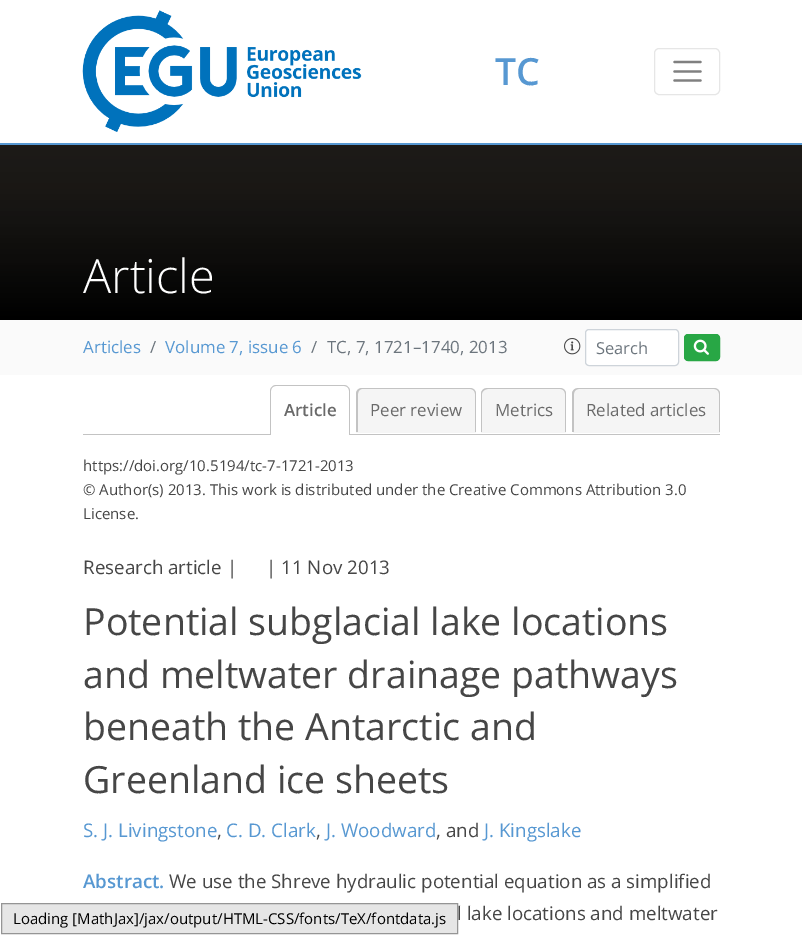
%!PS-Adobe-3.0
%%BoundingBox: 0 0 802 936
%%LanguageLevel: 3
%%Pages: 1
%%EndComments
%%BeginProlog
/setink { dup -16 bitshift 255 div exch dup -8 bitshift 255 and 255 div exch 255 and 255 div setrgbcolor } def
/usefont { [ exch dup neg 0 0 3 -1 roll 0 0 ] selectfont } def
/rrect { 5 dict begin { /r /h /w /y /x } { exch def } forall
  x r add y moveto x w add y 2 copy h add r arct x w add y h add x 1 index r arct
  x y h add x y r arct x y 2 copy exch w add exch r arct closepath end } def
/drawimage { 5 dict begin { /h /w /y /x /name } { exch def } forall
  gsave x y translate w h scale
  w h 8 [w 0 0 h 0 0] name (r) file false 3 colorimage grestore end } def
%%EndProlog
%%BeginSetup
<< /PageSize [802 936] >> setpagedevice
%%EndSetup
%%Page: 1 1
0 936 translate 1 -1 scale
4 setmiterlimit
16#FFFFFF setink
0 0 802 936 rectfill
(img1.raw) 82 10 280 122 drawimage
/OpenSans-SemiBold 37.5 usefont
16#5798D2 setink
495 85 moveto (TC) show
16#E6E6E6 setink
654.5 48.5 65 46 4.5 rrect stroke
16#808080 setink
2.3 setlinewidth
1 setlinecap
674.5 62 moveto 700.5 62 lineto 674.5 71.5 moveto 700.5 71.5 lineto 674.5 80.5 moveto 700.5 80.5 lineto stroke
16#5798D2 setink
0 143 802 2 rectfill
gsave 0 145 moveto 802 145 lineto 802 320 lineto 0 320 lineto closepath clip newpath
<< /ShadingType 2 /ColorSpace /DeviceRGB /Coords [401 320 401 145] /Extend [true true] /Function << /FunctionType 3 /Domain [0 1] /Functions [<< /FunctionType 2 /Domain [0 1] /C0 [0 0 0] /C1 [0.027 0.027 0.024] /N 1 >> << /FunctionType 2 /Domain [0 1] /C0 [0.027 0.027 0.024] /C1 [0.051 0.047 0.043] /N 1 >> << /FunctionType 2 /Domain [0 1] /C0 [0.051 0.047 0.043] /C1 [0.067 0.063 0.055] /N 1 >> << /FunctionType 2 /Domain [0 1] /C0 [0.067 0.063 0.055] /C1 [0.078 0.075 0.067] /N 1 >> << /FunctionType 2 /Domain [0 1] /C0 [0.078 0.075 0.067] /C1 [0.09 0.082 0.075] /N 1 >> << /FunctionType 2 /Domain [0 1] /C0 [0.09 0.082 0.075] /C1 [0.098 0.09 0.078] /N 1 >> << /FunctionType 2 /Domain [0 1] /C0 [0.098 0.09 0.078] /C1 [0.102 0.094 0.082] /N 1 >> << /FunctionType 2 /Domain [0 1] /C0 [0.102 0.094 0.082] /C1 [0.106 0.098 0.086] /N 1 >> << /FunctionType 2 /Domain [0 1] /C0 [0.106 0.098 0.086] /C1 [0.106 0.098 0.09] /N 1 >> << /FunctionType 2 /Domain [0 1] /C0 [0.106 0.098 0.09] /C1 [0.11 0.102 0.09] /N 1 >> << /FunctionType 2 /Domain [0 1] /C0 [0.11 0.102 0.09] /C1 [0.11 0.102 0.09] /N 1 >>] /Bounds [0.19 0.34 0.47 0.56 0.65 0.73 0.8 0.86 0.91 0.95] /Encode [0 1 0 1 0 1 0 1 0 1 0 1 0 1 0 1 0 1 0 1 0 1] >> >> shfill grestore
/OpenSans-Light 47 usefont
16#FFFFFF setink
83 293 moveto (Article) show
16#FAFAFA setink
0 320 802 55 rectfill
/OpenSans-Regular 16.9 usefont
16#5798D2 setink
83 353 moveto (Articles) show
16#6C757D setink
150 353 moveto (/) show
16#5798D2 setink
165 353 moveto (Volume 7, issue 6) show
16#6C757D setink
311 353 moveto (/) show
327 353 moveto (TC, 7, 1721–1740, 2013) show
(img2.raw) 564 338 17 17 drawimage
16#FFFFFF setink
586 330 92 35 2.5 rrect fill
16#CED4DA setink
1 setlinewidth
0 setlinecap
585.5 329.5 93 36 3.5 rrect stroke
/OpenSans-Regular 16.5 usefont
16#6C757D setink
596 354 moveto (Search) show
16#28A745 setink
684.5 334.5 35 26 3.5 rrect gsave fill grestore
stroke
(img3.raw) 693 339 16 16 drawimage
16#C3C3C3 setink
83 434 637 1 rectfill
16#FFFFFF setink
276 385 moveto 344 385 lineto 347.5 385 350 387.5 350 391 curveto 350 435 lineto 270 435 lineto 270 391 lineto 270 387.5 272.5 385 276 385 curveto closepath fill
16#C3C3C3 setink
276 385 moveto 344 385 lineto 347 385 350 388 350 391 curveto 350 435 lineto 270 435 lineto 270 391 lineto 270 388 273 385 276 385 curveto closepath 276 386 moveto 344 386 lineto 347 386 349 388 349 391 curveto 349 435 lineto 271 435 lineto 271 391 lineto 271 388 273 386 276 386 curveto closepath eofill
/OpenSans-SemiBold 16.9 usefont
16#6A6A6A setink
284 416 moveto (Article) show
16#F5F5F5 setink
362 388 moveto 470 388 lineto 473.5 388 476 390.5 476 394 curveto 476 433 lineto 356 433 lineto 356 394 lineto 356 390.5 358.5 388 362 388 curveto closepath fill
16#C3C3C3 setink
362 388 moveto 470 388 lineto 473 388 476 390 476 394 curveto 476 432 lineto 356 432 lineto 356 394 lineto 356 390 359 388 362 388 curveto closepath 362 389 moveto 470 389 lineto 473 389 475 391 475 394 curveto 475 432 lineto 358 432 lineto 358 394 lineto 358 391 360 389 362 389 curveto closepath eofill
/OpenSans-Regular 16.9 usefont
16#6A6A6A setink
370 416 moveto (Peer review) show
16#F5F5F5 setink
487 388 moveto 560 388 lineto 563.5 388 566 390.5 566 394 curveto 566 433 lineto 481 433 lineto 481 394 lineto 481 390.5 483.5 388 487 388 curveto closepath fill
16#C3C3C3 setink
488 388 moveto 560 388 lineto 563 388 566 390 566 394 curveto 566 432 lineto 481 432 lineto 481 394 lineto 481 390 484 388 488 388 curveto closepath 488 389 moveto 560 389 lineto 563 389 565 391 565 394 curveto 565 432 lineto 482 432 lineto 482 394 lineto 482 391 485 389 488 389 curveto closepath eofill
16#6A6A6A setink
495 416 moveto (Metrics) show
16#F5F5F5 setink
579 388 moveto 714 388 lineto 717.5 388 720 390.5 720 394 curveto 720 433 lineto 573 433 lineto 573 394 lineto 573 390.5 575.5 388 579 388 curveto closepath fill
16#C3C3C3 setink
579 388 moveto 714 388 lineto 717 388 720 390 720 394 curveto 720 432 lineto 572 432 lineto 572 394 lineto 572 390 575 388 579 388 curveto closepath 579 389 moveto 714 389 lineto 717 389 719 391 719 394 curveto 719 432 lineto 574 432 lineto 574 394 lineto 574 391 576 389 579 389 curveto closepath eofill
16#6A6A6A setink
586 416 moveto (Related articles) show
/OpenSans-Regular 15 usefont
16#464646 setink
[
    [(https://doi.org/10.5194/tc-7-1721-2013) 83 471]
    [(© Author\(s\) 2013. This work is distributed under the Creative Commons Attribution 3.0) 83 495]
    [(License.) 83 519]
] { aload pop moveto show } forall
/OpenSans-Regular 18.75 usefont
83 574 moveto (Research article |) show
266 574 moveto (| 11 Nov 2013) show
/OpenSans-Regular 37.5 usefont
[
    [(Potential subglacial lake locations) 83 635]
    [(and meltwater drainage pathways) 83 688]
    [(beneath the Antarctic and) 83 740]
    [(Greenland ice sheets) 83 793]
] { aload pop moveto show } forall
/OpenSans-Regular 18.75 usefont
16#5798D2 setink
83 837 moveto (S. J. Livingstone) show
16#464646 setink
217 837 moveto (,) show
16#5798D2 setink
226 837 moveto (C. D. Clark) show
16#464646 setink
316 837 moveto (,) show
16#5798D2 setink
326 837 moveto (J. Woodward) show
16#464646 setink
436 837 moveto (, and) show
16#5798D2 setink
484 837 moveto (J. Kingslake) show
/OpenSans-SemiBold 18.75 usefont
83 888 moveto (Abstract.) show
/OpenSans-Regular 18.75 usefont
16#464646 setink
169 888 moveto (We use the Shreve hydraulic potential equation as a simplified) show
457 920 moveto (l lake locations and meltwater) show
16#E6E6E6 setink
1.5 903.5 moveto 457.5 903.5 lineto 457.5 933.5 lineto 1.5 933.5 lineto closepath gsave fill grestore
16#959595 setink
stroke
/OpenSans-Regular 15 usefont
16#000000 setink
13 924 moveto (Loading [MathJax]/jax/output/HTML-CSS/fonts/TeX/fontdata.js) show
showpage
%%EOF
